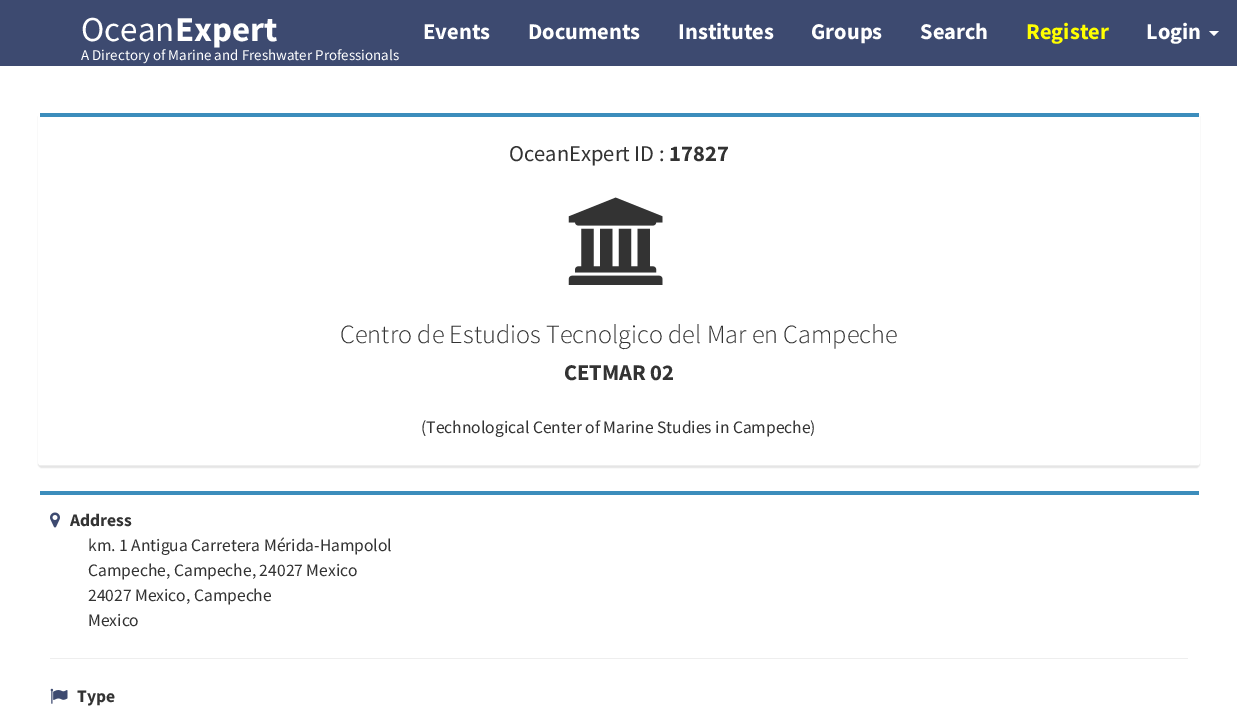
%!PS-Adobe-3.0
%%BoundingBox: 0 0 1237 717
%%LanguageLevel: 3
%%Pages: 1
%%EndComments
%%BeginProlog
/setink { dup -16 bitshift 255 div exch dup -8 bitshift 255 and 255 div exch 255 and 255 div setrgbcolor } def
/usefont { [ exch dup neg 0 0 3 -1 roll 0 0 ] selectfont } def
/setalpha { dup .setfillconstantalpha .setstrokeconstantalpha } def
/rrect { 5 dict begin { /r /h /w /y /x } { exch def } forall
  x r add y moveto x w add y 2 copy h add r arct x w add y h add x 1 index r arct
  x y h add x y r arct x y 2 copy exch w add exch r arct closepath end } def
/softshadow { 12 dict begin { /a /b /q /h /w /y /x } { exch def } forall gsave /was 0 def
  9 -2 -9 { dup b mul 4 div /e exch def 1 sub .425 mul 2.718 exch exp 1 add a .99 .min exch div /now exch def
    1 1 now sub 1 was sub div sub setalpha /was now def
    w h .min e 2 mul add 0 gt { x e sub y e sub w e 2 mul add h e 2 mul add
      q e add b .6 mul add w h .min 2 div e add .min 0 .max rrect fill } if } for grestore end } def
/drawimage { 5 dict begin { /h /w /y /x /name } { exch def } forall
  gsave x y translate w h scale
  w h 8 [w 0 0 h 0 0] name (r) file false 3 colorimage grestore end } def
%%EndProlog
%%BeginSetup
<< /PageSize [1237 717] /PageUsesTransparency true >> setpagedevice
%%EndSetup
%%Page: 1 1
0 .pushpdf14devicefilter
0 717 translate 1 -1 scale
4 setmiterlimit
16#FFFFFF setink
0 0 1237 717 rectfill
16#3D4A70 setink
0 0 1237 66 rectfill
/SourceSansPro-Regular 35 usefont
16#FFFFFF setink
81 41 moveto (Ocean) show
/SourceSansPro-Bold 35 usefont
175 41 moveto (Expert) show
/SourceSansPro-Regular 15 usefont
81 60 moveto (A Directory of Marine and Freshwater Professionals) show
/SourceSansPro-Bold 22.5 usefont
[
    [(Events) 423 39]
    [(Documents) 528 39]
    [(Institutes) 678 39]
    [(Groups) 811 39]
    [(Search) 920 39]
] { aload pop moveto show } forall
16#FFFF00 setink
1026 39 moveto (Register) show
16#FFFFFF setink
1146 39 moveto (Login) show
1209 31 moveto 1219 31 lineto 1214 36 lineto closepath fill
16#000000 setink
38 114 1162 354 4 0.5 0.1 softshadow
16#FFFFFF setink
38 113 1162 353 4 rrect fill
16#3C8DBC setink
40 113 1159 4 rectfill
16#EEEEEE setink
40 465 1159 1 rectfill
/SourceSansPro-Regular 22.5 usefont
16#333333 setink
509 161 moveto (OceanExpert ID :) show
/SourceSansPro-Bold 22.5 usefont
669 161 moveto (17827) show
(img1.raw) 568 197 95 88 drawimage
/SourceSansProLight-Light 26.25 usefont
340 343 moveto (Centro de Estudios Tecnolgico del Mar en Campeche) show
/SourceSansPro-Bold 22.5 usefont
564 380 moveto (CETMAR 02) show
/SourceSansPro-Regular 17.5 usefont
421 433 moveto (\(Technological Center of Marine Studies in Campeche\)) show
16#3C8DBC setink
40 491 1159 4 rectfill
(img2.raw) 50 512 10 16 drawimage
/SourceSansPro-Bold 17.5 usefont
16#333333 setink
70 526 moveto (Address) show
/SourceSansPro-Regular 17.5 usefont
[
    [(km. 1 Antigua Carretera Mérida-Hampolol) 88 551]
    [(Campeche, Campeche, 24027 Mexico) 88 576]
    [(24027 Mexico, Campeche) 88 601]
    [(Mexico) 88 626]
] { aload pop moveto show } forall
16#EEEEEE setink
50 658 1138 1 rectfill
(img3.raw) 50 688 18 16 drawimage
/SourceSansPro-Bold 17.5 usefont
16#333333 setink
77 702 moveto (Type) show
.poppdf14devicefilter showpage
%%EOF
